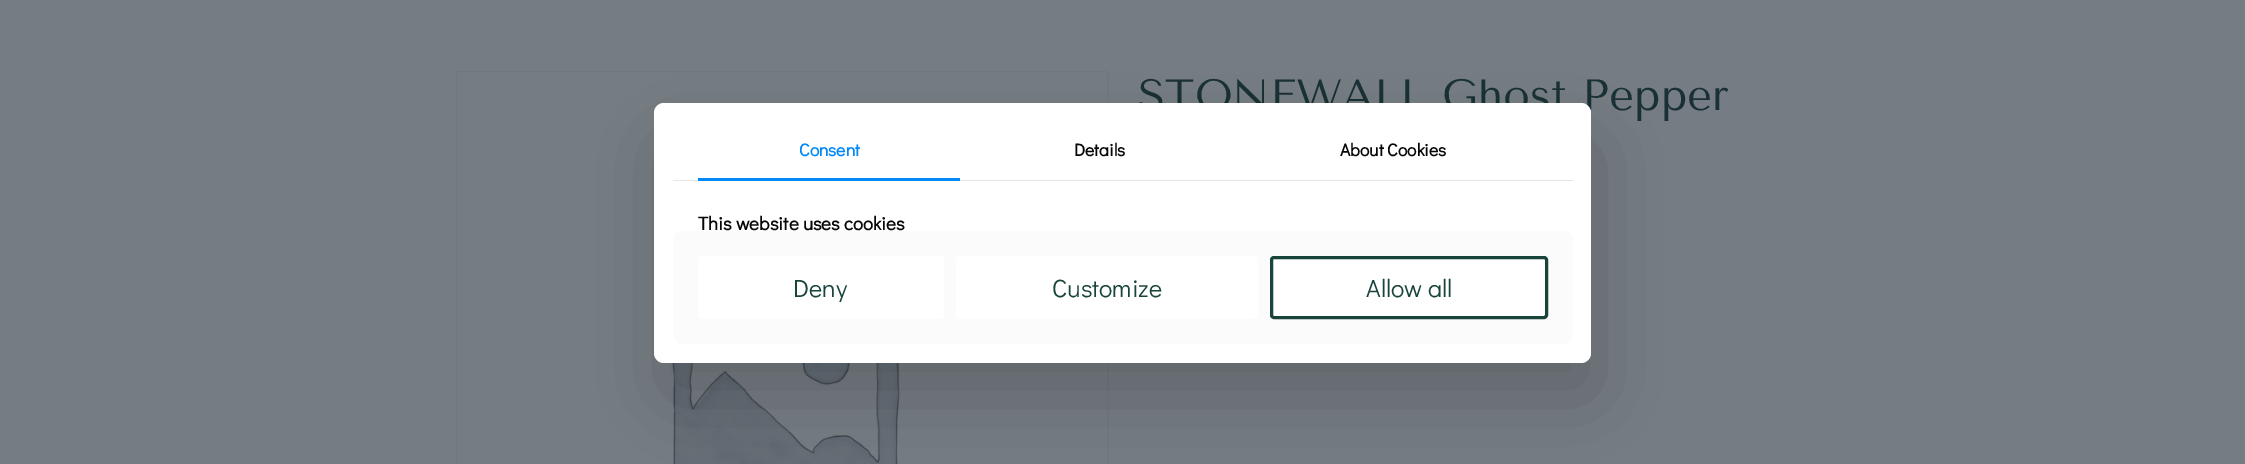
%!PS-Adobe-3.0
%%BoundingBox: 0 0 2245 464
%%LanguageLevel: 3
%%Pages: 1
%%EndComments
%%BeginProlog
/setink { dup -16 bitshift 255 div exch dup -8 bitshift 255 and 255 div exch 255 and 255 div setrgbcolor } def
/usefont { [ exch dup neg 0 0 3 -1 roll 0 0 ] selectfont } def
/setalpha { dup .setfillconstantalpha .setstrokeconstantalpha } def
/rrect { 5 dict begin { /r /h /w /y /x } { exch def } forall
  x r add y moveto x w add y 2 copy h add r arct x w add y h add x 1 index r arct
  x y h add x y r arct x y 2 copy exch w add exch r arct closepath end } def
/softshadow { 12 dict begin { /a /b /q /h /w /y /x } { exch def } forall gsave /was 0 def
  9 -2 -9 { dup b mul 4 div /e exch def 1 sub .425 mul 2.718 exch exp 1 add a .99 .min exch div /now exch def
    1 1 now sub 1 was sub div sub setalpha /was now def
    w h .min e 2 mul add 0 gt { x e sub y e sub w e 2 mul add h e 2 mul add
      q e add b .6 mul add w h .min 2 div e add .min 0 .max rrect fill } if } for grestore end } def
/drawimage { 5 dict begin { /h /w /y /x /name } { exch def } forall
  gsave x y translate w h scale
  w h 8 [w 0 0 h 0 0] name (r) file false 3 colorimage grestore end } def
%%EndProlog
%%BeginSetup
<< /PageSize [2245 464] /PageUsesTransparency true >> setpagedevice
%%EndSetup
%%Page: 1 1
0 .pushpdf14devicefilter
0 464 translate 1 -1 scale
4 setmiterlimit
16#757C83 setink
0 0 2245 464 rectfill
16#70777E setink
456.5 71.5 651 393 rectstroke
(img1.raw) 672 363 229 101 drawimage
/TenorSans-Regular 43.75 usefont
16#193134 setink
1138 110 moveto (STONEWALL Ghost Pepper) show
16#000000 setink
661 140 938 260 10 37.5 0.18 softshadow
16#FFFFFF setink
654 103 937 260 10 rrect fill
16#E6E6E7 setink
673 180 900 1 rectfill
/DidactGothic-Bold 17.5 usefont
16#0089F7 setink
799 156 moveto (Consent) show
698 178 262 3 rectfill
16#07070A setink
1074 156 moveto (Details) show
1340 156 moveto (About Cookies) show
/DidactGothic-Bold 18.75 usefont
698 230 moveto (This website uses cookies) show
16#FBFBFB setink
673 231 900 113 10 rrect fill
16#FFFFFF setink
698 256 246 63 4 rrect fill
/DidactGothic-Regular 25 usefont
16#19443B setink
793 297 moveto (Deny) show
16#FFFFFF setink
956 256 302 63 4 rrect fill
16#19443B setink
1052 297 moveto (Customize) show
16#FFFFFF setink
1271.5 257.5 275 60 2.5 rrect gsave fill grestore
16#19443B setink
3 setlinewidth
stroke
1366 297 moveto (Allow all) show
.poppdf14devicefilter showpage
%%EOF
